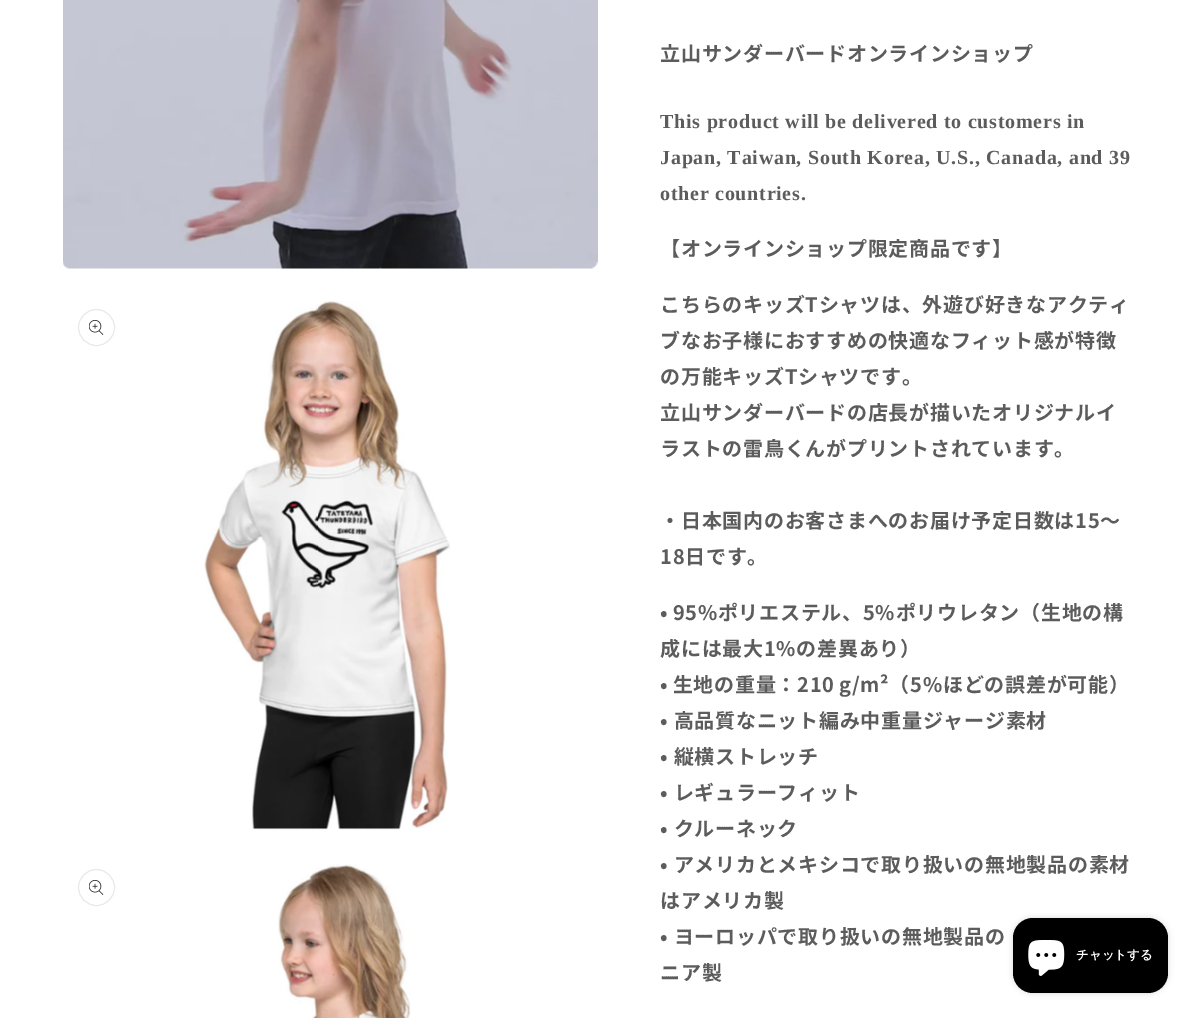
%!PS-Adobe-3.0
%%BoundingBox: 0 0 1194 1018
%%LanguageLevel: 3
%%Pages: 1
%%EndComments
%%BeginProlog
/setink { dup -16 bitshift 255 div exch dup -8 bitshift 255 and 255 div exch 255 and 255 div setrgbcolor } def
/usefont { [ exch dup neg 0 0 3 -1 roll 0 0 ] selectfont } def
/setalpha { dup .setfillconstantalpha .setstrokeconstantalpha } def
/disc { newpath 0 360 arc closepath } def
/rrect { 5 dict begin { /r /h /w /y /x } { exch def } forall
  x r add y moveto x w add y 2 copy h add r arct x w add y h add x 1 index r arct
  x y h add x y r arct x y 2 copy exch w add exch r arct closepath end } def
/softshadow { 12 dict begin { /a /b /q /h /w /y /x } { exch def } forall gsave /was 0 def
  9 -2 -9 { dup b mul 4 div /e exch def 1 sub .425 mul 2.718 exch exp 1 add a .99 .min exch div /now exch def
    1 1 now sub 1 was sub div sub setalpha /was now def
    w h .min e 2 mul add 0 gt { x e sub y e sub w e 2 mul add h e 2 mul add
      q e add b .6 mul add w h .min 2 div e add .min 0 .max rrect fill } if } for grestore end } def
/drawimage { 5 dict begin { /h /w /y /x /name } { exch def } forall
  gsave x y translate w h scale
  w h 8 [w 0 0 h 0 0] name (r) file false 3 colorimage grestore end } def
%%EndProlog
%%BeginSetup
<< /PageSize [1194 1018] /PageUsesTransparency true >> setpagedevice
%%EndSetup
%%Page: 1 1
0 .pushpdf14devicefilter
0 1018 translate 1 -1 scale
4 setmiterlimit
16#FFFFFF setink
0 0 1194 1018 rectfill
(img1.raw) 63 0 535 269 drawimage
16#E9E9E9 setink
96.5 327.5 18 disc stroke
(img2.raw) 89 320 15 15 drawimage
(img3.raw) 204 301 246 529 drawimage
96.5 887.5 18 disc stroke
(img2.raw) 89 880 15 15 drawimage
(img4.raw) 278 864 133 154 drawimage
/NotoSansJP-Bold 20 usefont
16#5C5C5C setink
660 61 moveto 0.75 0 (立山サンダーバードオンラインショップ) ashow
/LiberationSerif-Bold 20 usefont
660 128 moveto 0.75 0 (This product will be delivered to customers in) ashow
660 164 moveto 0.75 0 (Japan, Taiwan, South Korea, U.S., Canada, and 39) ashow
660 200 moveto 0.75 0 (other countries.) ashow
/NotoSansJP-Bold 20 usefont
660 256 moveto 0.75 0 (【オンラインショップ限定商品です】) ashow
660 312 moveto 0.75 0 (こちらのキッズTシャツは、外遊び好きなアクティ) ashow
660 348 moveto 0.75 0 (ブなお子様におすすめの快適なフィット感が特徴) ashow
660 384 moveto 0.75 0 (の万能キッズTシャツです。) ashow
660 420 moveto 0.75 0 (立山サンダーバードの店長が描いたオリジナルイ) ashow
660 456 moveto 0.75 0 (ラストの雷鳥くんがプリントされています。) ashow
660 528 moveto 0.75 0 (・日本国内のお客さまへのお届け予定日数は15～) ashow
660 564 moveto 0.75 0 (18日です。) ashow
660 620 moveto -1 0 32 0.75 0 (• 95%ポリエステル、5%ポリウレタン（生地の構) awidthshow
660 656 moveto 0.75 0 (成には最大1%の差異あり）) ashow
660 692 moveto -1 0 32 0.75 0 (• 生地の重量：210 g/m²（5%ほどの誤差が可能）) awidthshow
660 728 moveto 0.75 0 (• 高品質なニット編み中重量ジャージ素材) ashow
660 764 moveto 0.75 0 (• 縦横ストレッチ) ashow
660 800 moveto 0.75 0 (• レギュラーフィット) ashow
660 836 moveto 0.75 0 (• クルーネック) ashow
660 872 moveto 0.75 0 (• アメリカとメキシコで取り扱いの無地製品の素材) ashow
660 908 moveto 0.75 0 (はアメリカ製) ashow
660 944 moveto 0.75 0 (• ヨーロッパで取り扱いの無地製品の) ashow
660 980 moveto 0.75 0 (ニア製) ashow
16#000000 setink
1013 918 155 75 20 3 0.15 softshadow
1013 918 155 75 20 rrect fill
(img5.raw) 1028 940 37 36 drawimage
/WenQuanYiZenHei-Bold 12.5 usefont
16#FFFFFF setink
1076 959 moveto (チャットする) show
.poppdf14devicefilter showpage
%%EOF
